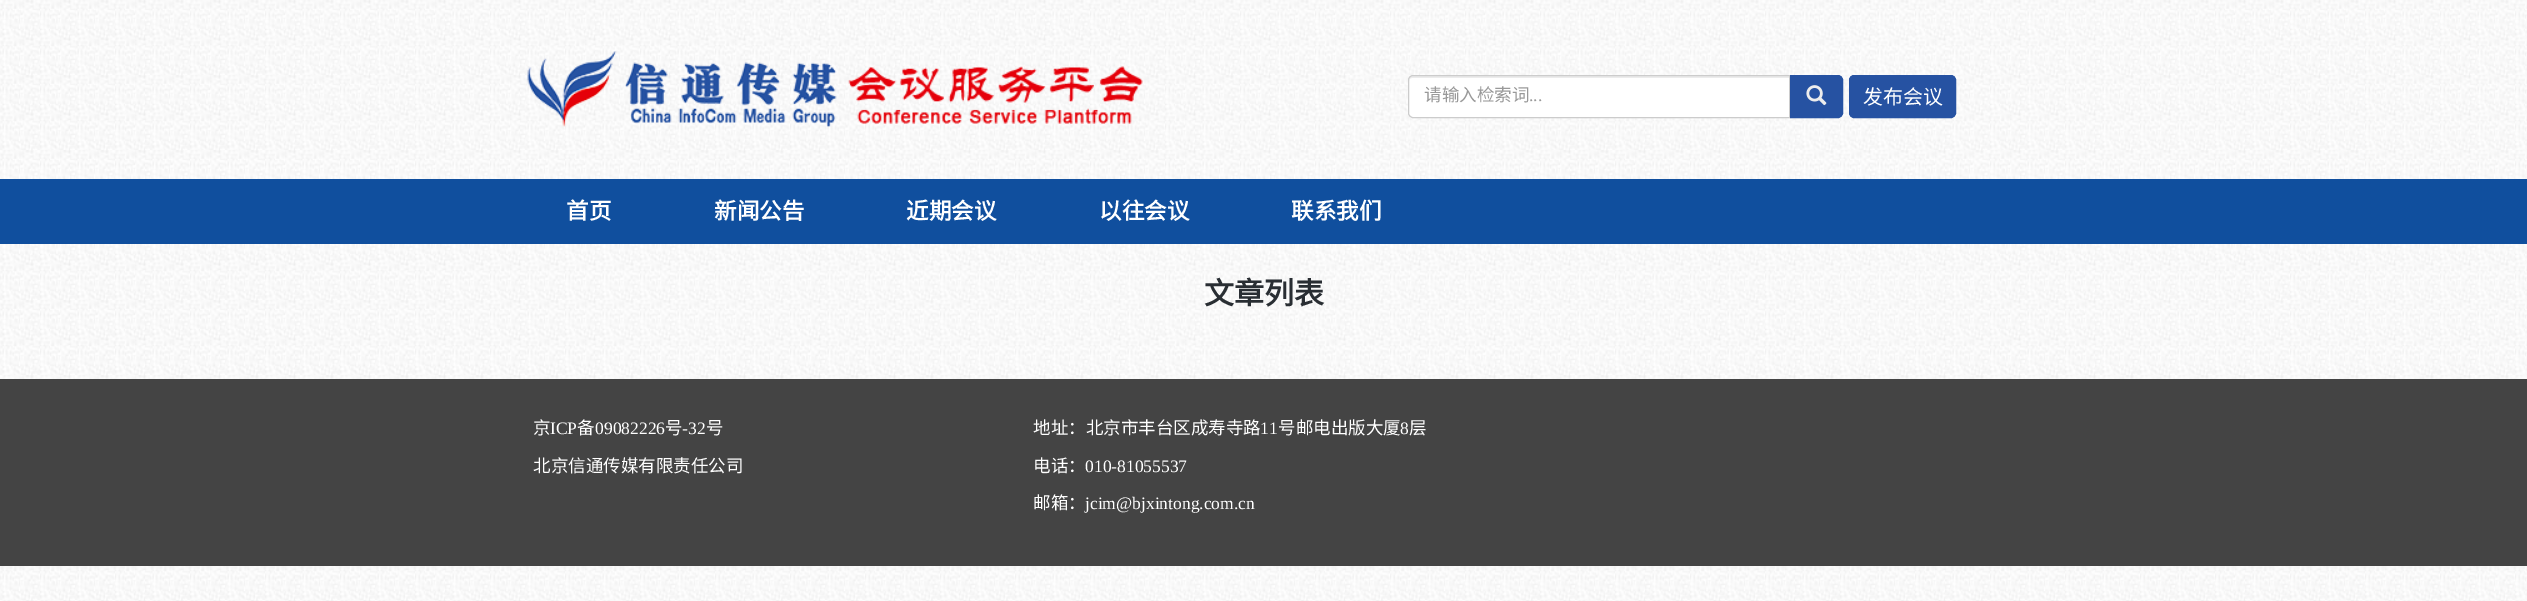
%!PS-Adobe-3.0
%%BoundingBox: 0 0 2527 601
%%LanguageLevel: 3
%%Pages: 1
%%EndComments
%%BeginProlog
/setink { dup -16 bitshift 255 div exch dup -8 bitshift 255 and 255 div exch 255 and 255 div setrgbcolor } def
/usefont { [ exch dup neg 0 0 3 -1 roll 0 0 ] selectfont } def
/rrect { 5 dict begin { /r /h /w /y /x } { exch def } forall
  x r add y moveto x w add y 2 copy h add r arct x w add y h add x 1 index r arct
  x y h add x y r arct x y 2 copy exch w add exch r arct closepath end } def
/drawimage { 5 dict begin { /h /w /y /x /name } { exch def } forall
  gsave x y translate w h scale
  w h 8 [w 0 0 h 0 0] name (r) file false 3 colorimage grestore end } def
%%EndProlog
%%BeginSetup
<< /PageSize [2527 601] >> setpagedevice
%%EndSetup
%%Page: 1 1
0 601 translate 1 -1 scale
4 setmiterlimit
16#FFFFFF setink
0 0 2527 601 rectfill
(img1.raw) 0 0 2527 601 drawimage
(img2.raw) 527 51 616 76 drawimage
1413 75 moveto 1790 75 lineto 1790 118 lineto 1413 118 lineto 1410 118 1408 116 1408 113 curveto 1408 80 lineto 1408 77 1410 75 1413 75 curveto closepath fill
16#ECECEC setink
1412 78 moveto 1789 78 lineto 1789 76 lineto 1413 76 lineto 1410 76 1409 78 1409 81 curveto 1409 79 1410 78 1412 78 curveto closepath fill
16#CCCCCC setink
1413 75.5 moveto 1789.5 75.5 lineto 1789.5 117.5 lineto 1413 117.5 lineto 1410.5 117.5 1408.5 115.5 1408.5 113 curveto 1408.5 80 lineto 1408.5 77.5 1410.5 75.5 1413 75.5 curveto closepath stroke
/NotoSansCJKSC-Regular 17.5 usefont
16#999999 setink
1424 101 moveto (请输入检索词) show
/LiberationSerif-Regular 17.5 usefont
1529 101 moveto (...) show
16#2652A2 setink
1790.5 75.5 moveto 1838 75.5 lineto 1840.5 75.5 1842.5 77.5 1842.5 80 curveto 1842.5 113 lineto 1842.5 115.5 1840.5 117.5 1838 117.5 curveto 1790.5 117.5 lineto closepath gsave fill grestore
stroke
(img3.raw) 1806 85 21 21 drawimage
1849.5 75.5 106 42 4.5 rrect gsave fill grestore
stroke
/NotoSansCJKSC-Regular 20 usefont
16#FFFFFF setink
1863 104 moveto (发布会议) show
16#104F9E setink
0 179 2527 65 rectfill
/NotoSansCJKSC-Bold 22.5 usefont
16#FFFFFF setink
[
    [(首页) 566 219]
    [(新闻公告) 714 219]
    [(近期会议) 906 219]
    [(以往会议) 1099 219]
    [(联系我们) 1291 219]
] { aload pop moveto show } forall
/NotoSansCJKSC-Bold 30 usefont
16#292E33 setink
1204 304 moveto (文章列表) show
16#444444 setink
0 379 2527 187 rectfill
/NotoSansCJKSC-Regular 17.5 usefont
16#FFFFFF setink
533 434 moveto (京) show
/LiberationSerif-Regular 17.5 usefont
550 434 moveto (ICP) show
/NotoSansCJKSC-Regular 17.5 usefont
577 434 moveto (备) show
/LiberationSerif-Regular 17.5 usefont
595 434 moveto (09082226) show
/NotoSansCJKSC-Regular 17.5 usefont
665 434 moveto (号) show
/LiberationSerif-Regular 17.5 usefont
682 434 moveto (-32) show
/NotoSansCJKSC-Regular 17.5 usefont
[
    [(号) 706 434]
    [(北京信通传媒有限责任公司) 533 472]
    [(地址：北京市丰台区成寿寺路) 1033 434]
] { aload pop moveto show } forall
/LiberationSerif-Regular 17.5 usefont
1260 434 moveto (11) show
/NotoSansCJKSC-Regular 17.5 usefont
1278 434 moveto (号邮电出版大厦) show
/LiberationSerif-Regular 17.5 usefont
1400 434 moveto (8) show
/NotoSansCJKSC-Regular 17.5 usefont
1409 434 moveto (层) show
1033 472 moveto (电话：) show
/LiberationSerif-Regular 17.5 usefont
1085 472 moveto (010-81055537) show
/NotoSansCJKSC-Regular 17.5 usefont
1033 509 moveto (邮箱：) show
/LiberationSerif-Regular 17.5 usefont
1085 509 moveto (jcim@bjxintong.com.cn) show
showpage
%%EOF
